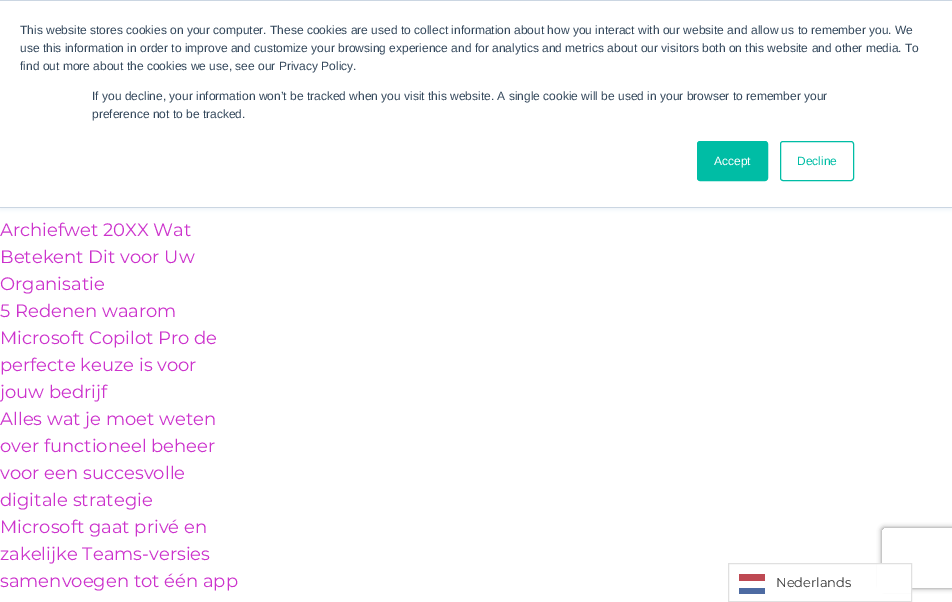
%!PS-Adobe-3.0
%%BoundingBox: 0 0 952 602
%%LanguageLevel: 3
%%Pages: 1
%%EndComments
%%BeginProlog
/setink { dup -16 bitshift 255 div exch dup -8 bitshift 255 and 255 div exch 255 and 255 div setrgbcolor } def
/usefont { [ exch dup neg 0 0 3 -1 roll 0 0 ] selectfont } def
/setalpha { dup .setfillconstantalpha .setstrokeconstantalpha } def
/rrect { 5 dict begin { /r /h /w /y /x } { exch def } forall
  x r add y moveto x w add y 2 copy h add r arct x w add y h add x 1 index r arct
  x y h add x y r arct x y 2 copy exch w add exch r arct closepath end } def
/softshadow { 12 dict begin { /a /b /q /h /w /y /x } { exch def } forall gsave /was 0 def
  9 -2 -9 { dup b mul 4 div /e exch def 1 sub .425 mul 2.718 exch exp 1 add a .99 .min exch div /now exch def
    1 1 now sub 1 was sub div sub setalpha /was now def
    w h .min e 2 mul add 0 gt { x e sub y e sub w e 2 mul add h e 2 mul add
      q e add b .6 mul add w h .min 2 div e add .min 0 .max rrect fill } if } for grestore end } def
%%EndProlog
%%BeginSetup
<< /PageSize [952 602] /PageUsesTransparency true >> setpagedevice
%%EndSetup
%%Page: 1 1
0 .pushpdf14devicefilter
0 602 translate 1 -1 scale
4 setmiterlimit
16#FFFFFF setink
0 0 952 602 rectfill
16#EAF0F6 setink
0 1 952 208 0 2.5 1 softshadow
[
    [0 1 952 206 16#FFFFFF]
    [0 0 952 1 16#CBD6E2]
    [0 207 952 1 16#CBD6E2]
] { aload pop setink rectfill } forall
/LiberationSans-Regular 12 usefont
16#33475B setink
[
    [(This website stores cookies on your computer. These cookies are used to collect information about how you interact with our website and allow us to remember you. We) 20 34]
    [(use this information in order to improve and customize your browsing experience and for analytics and metrics about our visitors both on this website and other media. To) 20 52]
    [(find out more about the cookies we use, see our Privacy Policy.) 20 70]
    [(If you decline, your information won’t be tracked when you visit this website. A single cookie will be used in your browser to remember your) 92 100]
    [(preference not to be tracked.) 92 118]
] { aload pop moveto show } forall
16#00BDA5 setink
697.5 141.5 70 39 2.5 rrect gsave fill grestore
stroke
16#FFFFFF setink
714 165 moveto (Accept) show
16#00BDA5 setink
780.5 141.5 73 39 2.5 rrect stroke
797 165 moveto (Decline) show
/Montserrat-Thin 18 usefont
16#CC33CC setink
[
    [(Archiefwet 20XX Wat) 0 236]
    [(Betekent Dit voor Uw) 0 263]
    [(Organisatie) 0 290]
    [(5 Redenen waarom) 0 317]
    [(Microsoft Copilot Pro de) 0 344]
    [(perfecte keuze is voor) 0 371]
    [(jouw bedrijf) 0 398]
    [(Alles wat je moet weten) 0 425]
    [(over functioneel beheer) 0 452]
    [(voor een succesvolle) 0 479]
    [(digitale strategie) 0 506]
    [(Microsoft gaat privé en) 0 533]
    [(zakelijke Teams-versies) 0 560]
    [(samenvoegen tot één app) 0 587]
] { aload pop moveto show } forall
gsave
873 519 moveto 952 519 lineto 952 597 lineto 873 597 lineto closepath 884 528 moveto 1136 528 lineto 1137 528 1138 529 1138 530 curveto 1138 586 lineto 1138 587 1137 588 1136 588 curveto 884 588 lineto 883 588 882 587 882 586 curveto 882 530 lineto 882 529 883 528 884 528 curveto closepath eoclip newpath
16#808080 setink
882 528 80 60 2 2.5 1 softshadow
grestore
16#FFFFFF setink
877 564 34 29 rectfill
16#E0E0E0 setink
728.5 563.5 183 38 rectstroke
16#BE4953 setink
739 574 26 7 rectfill
16#4D6BA2 setink
739 588 26 6 rectfill
/Montserrat-Thin 13 usefont
16#333333 setink
776 587 moveto (Nederlands) show
.poppdf14devicefilter showpage
%%EOF
